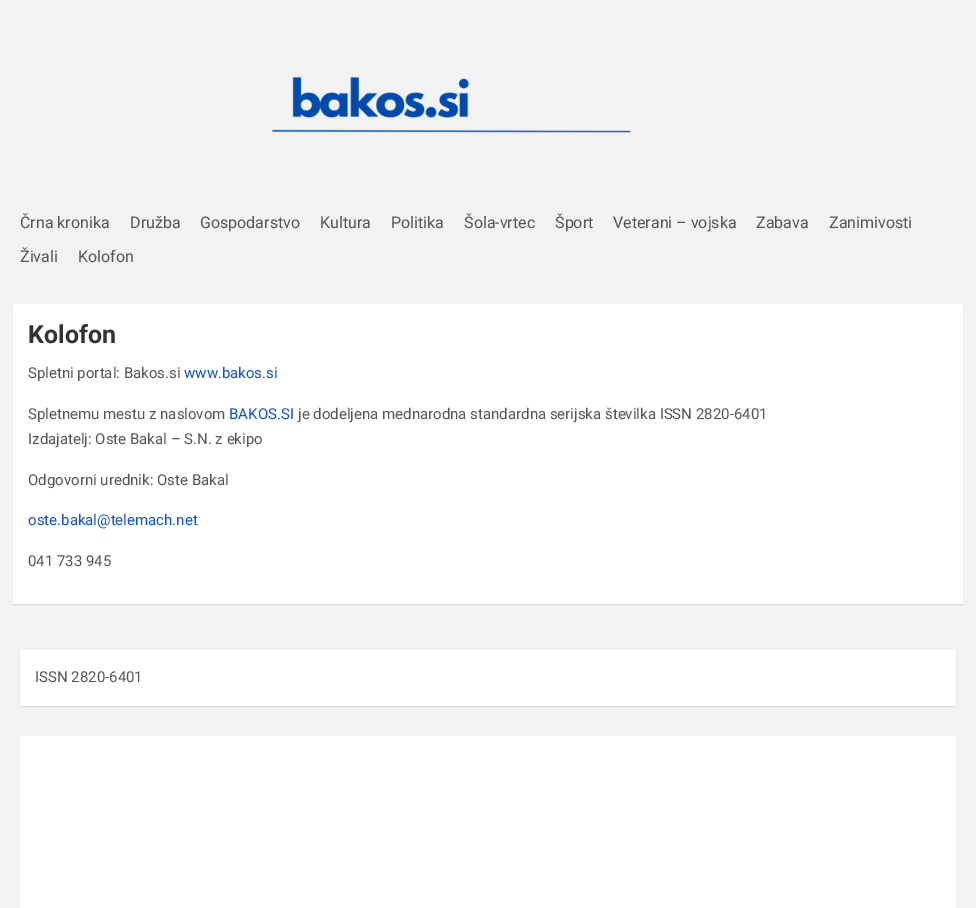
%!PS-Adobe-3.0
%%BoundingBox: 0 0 976 908
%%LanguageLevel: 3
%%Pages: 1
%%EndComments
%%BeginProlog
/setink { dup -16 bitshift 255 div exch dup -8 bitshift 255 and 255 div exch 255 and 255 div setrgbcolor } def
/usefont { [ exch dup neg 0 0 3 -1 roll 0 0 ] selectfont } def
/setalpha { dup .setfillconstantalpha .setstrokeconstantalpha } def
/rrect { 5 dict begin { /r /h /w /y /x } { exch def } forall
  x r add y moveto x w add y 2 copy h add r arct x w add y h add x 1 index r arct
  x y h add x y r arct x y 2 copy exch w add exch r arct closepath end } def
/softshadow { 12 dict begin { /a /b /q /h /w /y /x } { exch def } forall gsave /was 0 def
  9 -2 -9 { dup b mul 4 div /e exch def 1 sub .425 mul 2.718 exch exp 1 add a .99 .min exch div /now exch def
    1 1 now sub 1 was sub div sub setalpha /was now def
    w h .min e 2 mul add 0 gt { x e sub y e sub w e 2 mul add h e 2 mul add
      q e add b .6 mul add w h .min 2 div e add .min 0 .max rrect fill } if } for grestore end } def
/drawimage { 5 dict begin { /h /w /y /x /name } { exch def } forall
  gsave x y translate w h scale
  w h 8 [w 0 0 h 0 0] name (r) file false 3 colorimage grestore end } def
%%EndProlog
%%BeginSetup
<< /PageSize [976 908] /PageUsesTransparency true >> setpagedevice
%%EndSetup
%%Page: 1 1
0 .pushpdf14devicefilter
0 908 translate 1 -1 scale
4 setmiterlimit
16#F2F2F2 setink
0 0 976 908 rectfill
(img1.raw) 271 76 360 57 drawimage
/Roboto-Regular 16 usefont
16#555555 setink
[
    [(Črna kronika) 20 228]
    [(Družba) 130 228]
    [(Gospodarstvo) 200 228]
    [(Kultura) 320 228]
    [(Politika) 391 228]
    [(Šola-vrtec) 464 228]
    [(Šport) 555 228]
    [(Veterani – vojska) 613 228]
    [(Zabava) 756 228]
    [(Zanimivosti) 829 228]
    [(Živali) 20 262]
    [(Kolofon) 78 262]
] { aload pop moveto show } forall
16#000000 setink
13 305 950 300 0 0.5 0.1 softshadow
16#FFFFFF setink
13 304 950 300 rectfill
/Roboto-Bold 25 usefont
16#333333 setink
28 343 moveto (Kolofon) show
/Roboto-Regular 15 usefont
16#555555 setink
28 378 moveto (Spletni portal: Bakos.si) show
16#1151D3 setink
184 378 moveto (www.bakos.si) show
16#555555 setink
28 419 moveto (Spletnemu mestu z naslovom) show
16#1151D3 setink
229 419 moveto (BAKOS.SI) show
16#555555 setink
[
    [(je dodeljena mednarodna standardna serijska številka ISSN 2820-6401) 298 419]
    [(Izdajatelj: Oste Bakal – S.N. z ekipo) 28 444]
    [(Odgovorni urednik: Oste Bakal) 28 485]
] { aload pop moveto show } forall
16#1151D3 setink
28 525 moveto (oste.bakal@telemach.net) show
16#555555 setink
28 566 moveto (041 733 945) show
16#000000 setink
20 651 936 56 0 0.5 0.1 softshadow
16#FFFFFF setink
20 650 936 56 rectfill
16#555555 setink
35 682 moveto (ISSN 2820-6401) show
16#FFFFFF setink
20 736 936 172 rectfill
.poppdf14devicefilter showpage
%%EOF
